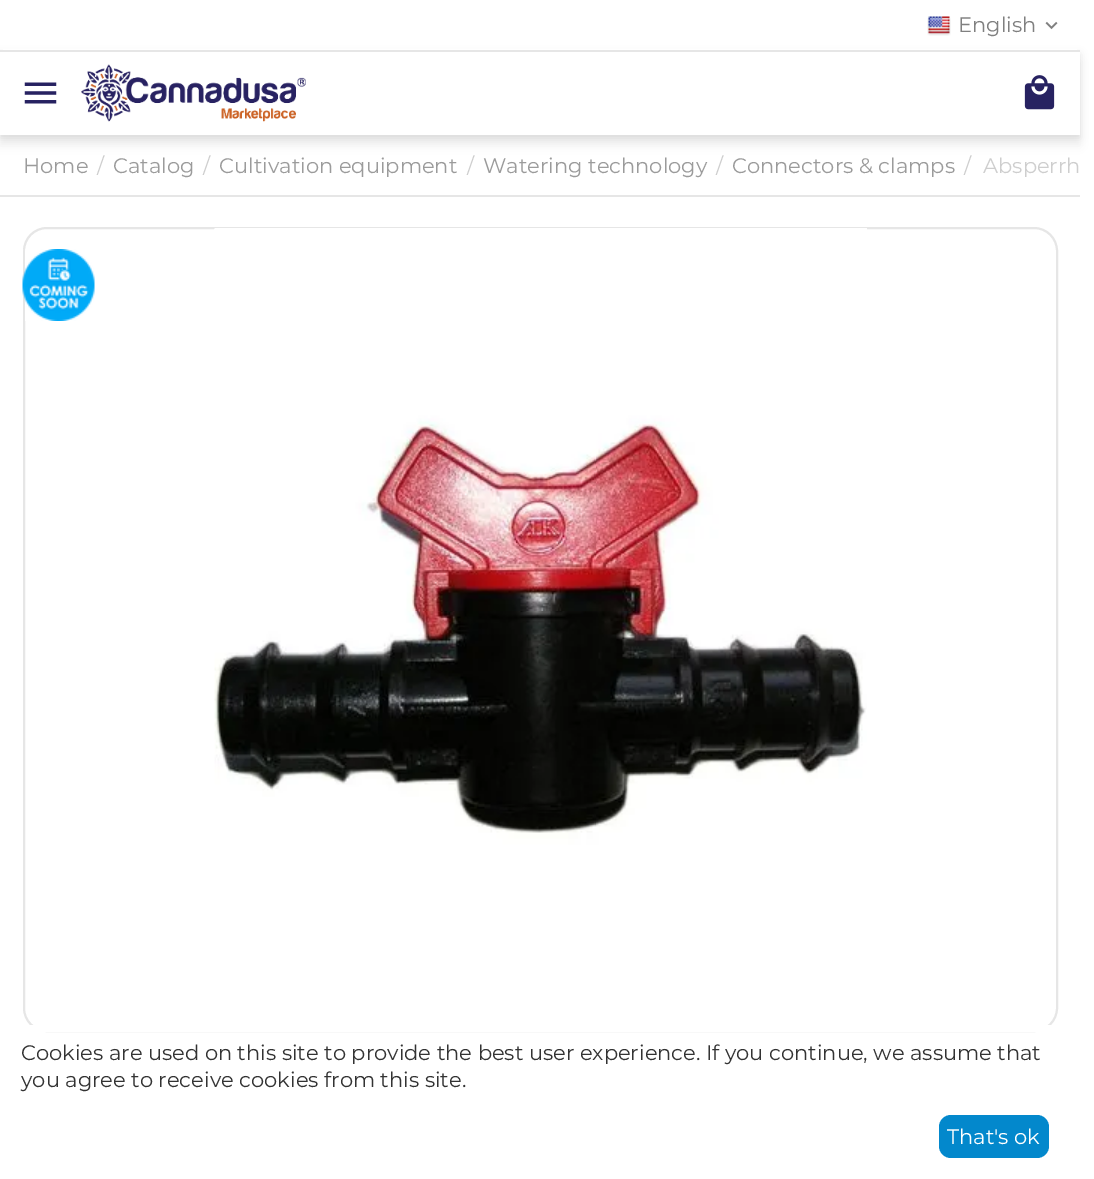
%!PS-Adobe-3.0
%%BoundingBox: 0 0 1094 1179
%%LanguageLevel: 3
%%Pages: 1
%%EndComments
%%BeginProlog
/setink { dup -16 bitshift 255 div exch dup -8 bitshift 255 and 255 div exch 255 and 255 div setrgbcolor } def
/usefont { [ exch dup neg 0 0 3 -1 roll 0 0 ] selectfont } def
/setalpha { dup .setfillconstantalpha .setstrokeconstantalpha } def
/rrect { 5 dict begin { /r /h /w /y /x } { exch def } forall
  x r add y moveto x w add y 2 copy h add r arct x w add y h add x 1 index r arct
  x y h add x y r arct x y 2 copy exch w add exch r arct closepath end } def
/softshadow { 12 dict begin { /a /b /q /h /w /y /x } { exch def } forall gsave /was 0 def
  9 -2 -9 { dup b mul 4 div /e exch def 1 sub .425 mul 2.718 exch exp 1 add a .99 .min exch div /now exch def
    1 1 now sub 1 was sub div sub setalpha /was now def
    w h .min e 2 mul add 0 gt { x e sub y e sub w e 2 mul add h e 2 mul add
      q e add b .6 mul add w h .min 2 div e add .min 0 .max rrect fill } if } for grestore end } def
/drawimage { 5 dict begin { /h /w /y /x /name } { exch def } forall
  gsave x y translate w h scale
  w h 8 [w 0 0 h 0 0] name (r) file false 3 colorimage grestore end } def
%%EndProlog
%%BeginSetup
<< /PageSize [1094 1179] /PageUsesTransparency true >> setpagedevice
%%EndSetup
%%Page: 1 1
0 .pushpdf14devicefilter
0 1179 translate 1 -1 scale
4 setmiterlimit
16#FFFFFF setink
0 0 1094 1179 rectfill
gsave
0 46 moveto 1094 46 lineto 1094 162 lineto 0 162 lineto closepath 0 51 moveto 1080 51 lineto 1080 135 lineto 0 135 lineto closepath eoclip newpath
16#000000 setink
0 62 1080 84 0 5 0.05 softshadow
grestore
gsave
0 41 moveto 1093 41 lineto 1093 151 lineto 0 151 lineto closepath 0 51 moveto 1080 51 lineto 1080 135 lineto 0 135 lineto closepath eoclip newpath
16#000000 setink
0 54 1080 84 0 4 0.1 softshadow
grestore
3 49 1074 1 rectfill
16#E6E6E6 setink
0 50 1080 2 rectfill
(img1.raw) 927 16 24 20 drawimage
/Montserrat-Thin 21 usefont
16#808080 setink
958 32 moveto (English) show
(img2.raw) 1045 21 13 9 drawimage
(img3.raw) 24 82 33 22 drawimage
(img4.raw) 81 64 225 58 drawimage
(img5.raw) 1024 75 31 35 drawimage
16#E6E6E6 setink
0 195 1080 2 rectfill
16#9B9B9B setink
23 173 moveto (Home) show
16#CECECE setink
97 173 moveto (/) show
16#9B9B9B setink
113 173 moveto (Catalog) show
16#CECECE setink
203 173 moveto (/) show
16#9B9B9B setink
219 173 moveto (Cultivation equipment) show
16#CECECE setink
467 173 moveto (/) show
16#9B9B9B setink
483 173 moveto (Watering technology) show
16#CECECE setink
716 173 moveto (/) show
16#9B9B9B setink
732 173 moveto (Connectors & clamps) show
16#CECECE setink
964 173 moveto (/) show
983 173 moveto (Absperrh) show
16#E6E6E6 setink
2 setlinewidth
24 228 1033 803 23 rrect stroke
(img6.raw) 214 228 653 797 drawimage
(img7.raw) 22 249 73 72 drawimage
16#FFFFFF setink
30 1025 1021 7 rectfill
16#333333 setink
21 1060 moveto (Cookies are used on this site to provide the best user experience. If you continue, we assume that) show
21 1087 moveto (you agree to receive cookies from this site.) show
16#0388CC setink
939 1115 110 43 12 rrect fill
16#FFFFFF setink
947 1144 moveto (That's ok) show
.poppdf14devicefilter showpage
%%EOF
